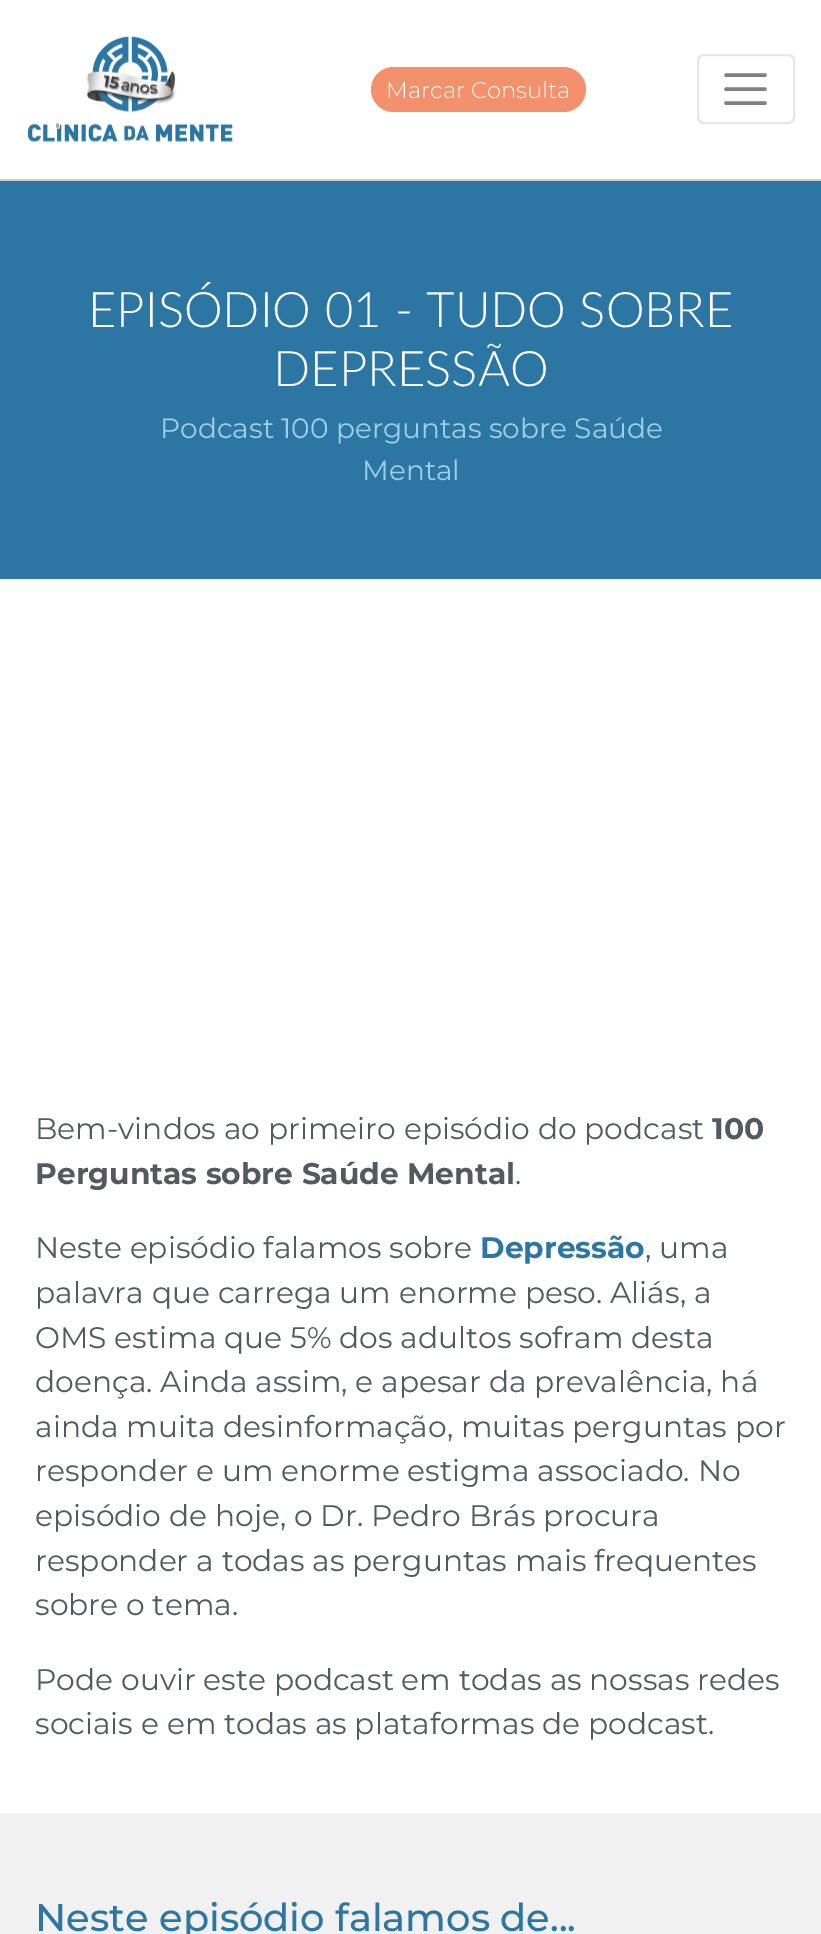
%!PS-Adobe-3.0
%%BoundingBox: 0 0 821 1934
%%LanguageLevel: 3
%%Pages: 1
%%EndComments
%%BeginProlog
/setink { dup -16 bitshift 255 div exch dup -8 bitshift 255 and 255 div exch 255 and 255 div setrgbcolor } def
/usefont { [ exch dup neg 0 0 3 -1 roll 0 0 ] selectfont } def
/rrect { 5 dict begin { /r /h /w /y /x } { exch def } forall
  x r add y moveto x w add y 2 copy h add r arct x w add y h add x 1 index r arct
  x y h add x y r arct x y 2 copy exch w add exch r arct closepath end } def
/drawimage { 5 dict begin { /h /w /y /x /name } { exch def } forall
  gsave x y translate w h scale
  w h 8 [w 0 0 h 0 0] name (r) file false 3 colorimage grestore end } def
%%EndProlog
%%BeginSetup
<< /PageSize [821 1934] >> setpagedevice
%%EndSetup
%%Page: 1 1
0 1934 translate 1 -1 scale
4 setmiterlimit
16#FFFFFF setink
0 0 821 1934 rectfill
16#CECECE setink
0 179 821 2 rectfill
(img1.raw) 28 36 205 106 drawimage
16#F2916B setink
371 67 215 45 22.5 rrect fill
/Montserrat-Light 22.75 usefont
16#FFFFFF setink
386 98 moveto (Marcar Consulta) show
16#E6E6E6 setink
2 setlinewidth
698 55 96 68 6 rrect stroke
16#808080 setink
3.5 setlinewidth
1 setlinecap
726 75 moveto 765 75 lineto 726 89 moveto 765 89 lineto 726 103 moveto 765 103 lineto stroke
16#2B76A2 setink
0 181 821 398 rectfill
/Lato-Light 49 usefont
16#FFFFFF setink
88 327 moveto (EPISÓDIO 01 - TUDO SOBRE) show
273 386 moveto (DEPRESSÃO) show
/Montserrat-Regular 28 usefont
16#9FCFE8 setink
160 438 moveto (Podcast 100 perguntas sobre Saúde) show
362 480 moveto (Mental) show
/Montserrat-Regular 29.75 usefont
16#54595F setink
35 1139 moveto (Bem-vindos ao primeiro episódio do podcast) show
/Montserrat-Bold 29.75 usefont
712 1139 moveto (100) show
35 1184 moveto (Perguntas sobre Saúde Mental) show
/Montserrat-Regular 29.75 usefont
515 1184 moveto (.) show
35 1258 moveto (Neste episódio falamos sobre) show
/Montserrat-Bold 29.75 usefont
16#2B76A2 setink
480 1258 moveto (Depressão) show
/Montserrat-Regular 29.75 usefont
16#54595F setink
[
    [(, uma) 645 1258]
    [(palavra que carrega um enorme peso. Aliás, a) 35 1303]
    [(OMS estima que 5% dos adultos sofram desta) 35 1348]
    [(doença. Ainda assim, e apesar da prevalência, há) 35 1392]
    [(ainda muita desinformação, muitas perguntas por) 35 1437]
    [(responder e um enorme estigma associado. No) 35 1481]
    [(episódio de hoje, o Dr. Pedro Brás procura) 35 1526]
    [(responder a todas as perguntas mais frequentes) 35 1571]
    [(sobre o tema.) 35 1615]
    [(Pode ouvir este podcast em todas as nossas redes) 35 1690]
    [(sociais e em todas as plataformas de podcast.) 35 1734]
] { aload pop moveto show } forall
16#F1F1F1 setink
0 1813 821 121 rectfill
/Montserrat-Medium 38.5 usefont
16#2B76A2 setink
35 1931 moveto (Neste episódio falamos de...) show
showpage
%%EOF
